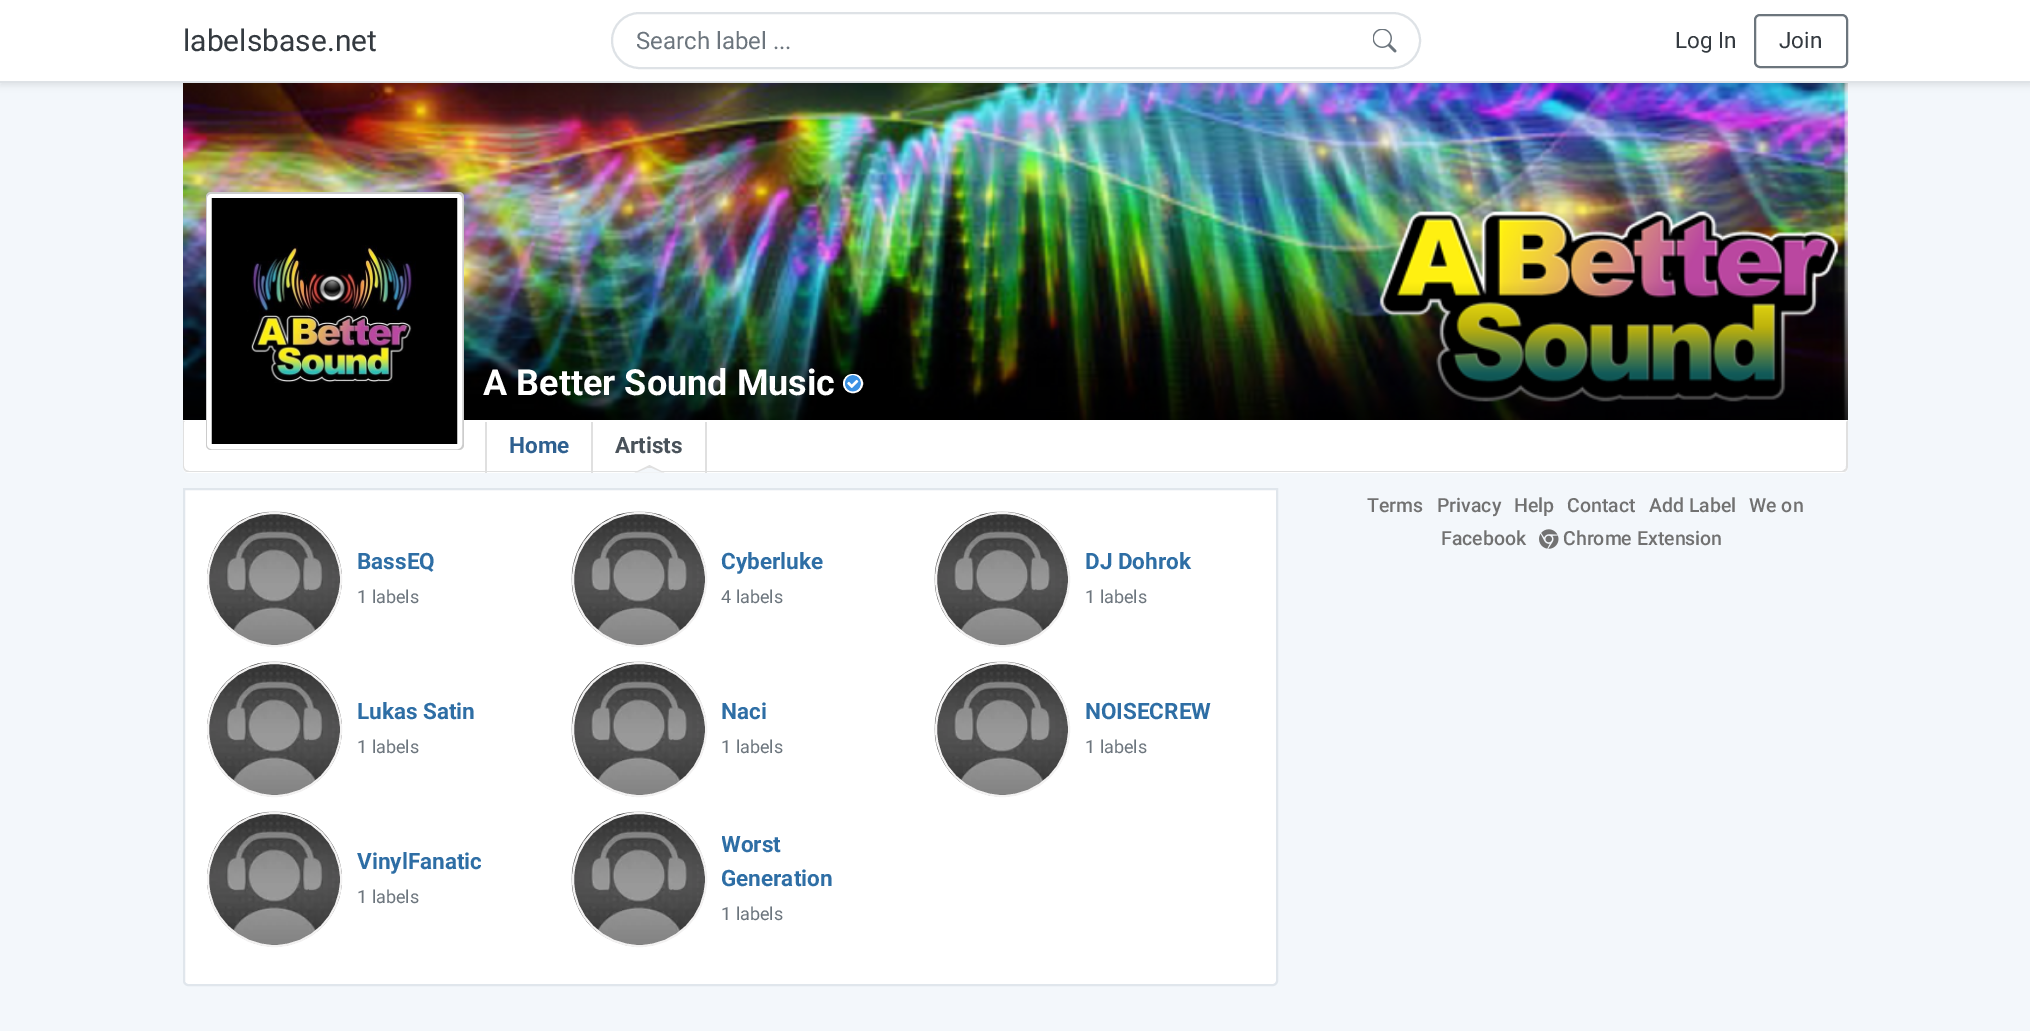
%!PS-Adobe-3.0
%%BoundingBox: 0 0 2030 1031
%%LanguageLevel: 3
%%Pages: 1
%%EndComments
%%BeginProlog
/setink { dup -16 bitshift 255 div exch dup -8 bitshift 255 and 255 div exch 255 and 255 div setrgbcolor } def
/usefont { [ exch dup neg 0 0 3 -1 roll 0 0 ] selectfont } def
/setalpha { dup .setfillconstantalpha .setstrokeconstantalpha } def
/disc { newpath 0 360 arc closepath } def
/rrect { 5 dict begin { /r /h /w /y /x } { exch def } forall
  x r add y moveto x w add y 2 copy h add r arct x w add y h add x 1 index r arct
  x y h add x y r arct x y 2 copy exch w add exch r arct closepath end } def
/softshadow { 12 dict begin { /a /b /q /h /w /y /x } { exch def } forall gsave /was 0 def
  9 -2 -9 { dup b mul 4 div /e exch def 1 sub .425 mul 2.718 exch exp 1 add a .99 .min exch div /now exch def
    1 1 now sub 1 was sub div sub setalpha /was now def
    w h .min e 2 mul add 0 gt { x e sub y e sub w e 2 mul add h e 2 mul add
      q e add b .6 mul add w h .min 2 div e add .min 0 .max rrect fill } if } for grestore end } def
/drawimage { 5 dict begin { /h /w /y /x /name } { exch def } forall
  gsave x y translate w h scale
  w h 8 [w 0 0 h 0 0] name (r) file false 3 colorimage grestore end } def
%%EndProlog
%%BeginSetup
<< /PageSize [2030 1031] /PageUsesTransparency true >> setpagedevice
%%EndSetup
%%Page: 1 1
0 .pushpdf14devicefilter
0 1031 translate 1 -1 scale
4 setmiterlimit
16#F3F7FB setink
0 0 2030 1031 rectfill
(img2.raw) 183 83 1665 337 drawimage
16#000000 setink
0 3 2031 83 0 3 0.07 softshadow
16#FFFFFF setink
0 0 2030 81 rectfill
16#DEE2E6 setink
0 81 2030 2 rectfill
/Roboto-Regular 30 usefont
16#343A40 setink
183 51 moveto (labelsbase.net) show
16#DEE2E6 setink
2 setlinewidth
612 13 808 55 27.5 rrect stroke
/Roboto-Regular 24 usefont
16#6C757D setink
636 49 moveto (Search label ...) show
(img1.raw) 1373 29 24 24 drawimage
/Roboto-Regular 22.5 usefont
16#343A40 setink
1675 48 moveto (Log In) show
16#6C757D setink
1755 15 92 52 5 rrect stroke
16#343A40 setink
1779 48 moveto (Join) show
16#FFFFFF setink
183 420 moveto 1848 420 lineto 1848 467 lineto 1848 470.5 1845.5 473 1842 473 curveto 189 473 lineto 185.5 473 183 470.5 183 467 curveto closepath fill
16#CCCCCC setink
206 192 258 258 5 rrect fill
16#FFFFFF setink
5 setlinewidth
209.5 196.5 250 250 2.5 rrect stroke
(img3.raw) 211 198 247 246 drawimage
/Roboto-Bold 36 usefont
483 395 moveto (A Better Sound Music) show
844 375 18 17 8.5 rrect gsave fill grestore
2 setlinewidth
stroke
(img4.raw) 845 375 16 17 drawimage
16#E0E0E0 setink
1848 420 moveto 1846 422 lineto 1846 466 lineto 1846 467 1846 469 1845 469 curveto 1846 471 lineto 1847 470 1848 468 1848 466 curveto closepath fill
1846 471 moveto 1845 472 1843 472 1842 472 curveto 189 472 lineto 188 472 186 472 185 471 curveto 186 470 lineto 189 471 lineto 1842 471 lineto 1843 471 1844 470 1845 469 curveto closepath fill
184 422 moveto 185 422 lineto 183 420 lineto 183 466 lineto 183 468 184 470 185 471 curveto 186 470 lineto 185 469 184 468 184 466 curveto closepath fill
591 422 2 51 rectfill
485 422 2 51 rectfill
/Roboto-Bold 22.5 usefont
16#2E6090 setink
509 453 moveto (Home) show
16#E0E0E0 setink
705 422 2 51 rectfill
16#49525A setink
615 453 moveto (Artists) show
16#E0E0E0 setink
664.5 472.5 moveto 634.5 472.5 lineto 649.5 465 lineto closepath fill
16#F3F7FB setink
661.5 472.5 moveto 637.5 472.5 lineto 648 468 lineto 651 468 lineto closepath fill
/Roboto-Medium 19.5 usefont
16#717171 setink
[
    [(Terms) 1367 512]
    [(Privacy) 1437 512]
    [(Help) 1514 512]
    [(Contact) 1567 512]
    [(Add Label) 1649 512]
    [(We on) 1749 512]
    [(Facebook) 1441 545]
] { aload pop moveto show } forall
(img5.raw) 1539 529 20 20 drawimage
1563 545 moveto (Chrome Extension) show
16#FFFFFF setink
184 489 moveto 1277 489 lineto 1277 981 lineto 1277 983 1275 985 1273 985 curveto 188 985 lineto 186 985 184 983 184 981 curveto closepath gsave fill grestore
16#E0E6EC setink
stroke
(img6.raw) 207 511 135 136 drawimage
16#F3F2F2 setink
274.5 579.5 66.5 disc stroke
/Roboto-Bold 22.5 usefont
16#2E6EA5 setink
357 569 moveto (BassEQ) show
/Roboto-Regular 18 usefont
16#6C757D setink
357 603 moveto (1 labels) show
(img7.raw) 571 511 136 136 drawimage
16#F3F2F2 setink
639.5 579.5 66.5 disc stroke
/Roboto-Bold 22.5 usefont
16#2E6EA5 setink
721 569 moveto (Cyberluke) show
/Roboto-Regular 18 usefont
16#6C757D setink
721 603 moveto (4 labels) show
(img8.raw) 934 511 136 136 drawimage
16#F3F2F2 setink
1002.5 579.5 66.5 disc stroke
/Roboto-Bold 22.5 usefont
16#2E6EA5 setink
1085 569 moveto (DJ Dohrok) show
/Roboto-Regular 18 usefont
16#6C757D setink
1085 603 moveto (1 labels) show
(img9.raw) 207 661 135 136 drawimage
16#F3F2F2 setink
274.5 729.5 66.5 disc stroke
/Roboto-Bold 22.5 usefont
16#2E6EA5 setink
357 719 moveto (Lukas Satin) show
/Roboto-Regular 18 usefont
16#6C757D setink
357 753 moveto (1 labels) show
(img10.raw) 571 661 136 136 drawimage
16#F3F2F2 setink
639.5 729.5 66.5 disc stroke
/Roboto-Bold 22.5 usefont
16#2E6EA5 setink
721 719 moveto (Naci) show
/Roboto-Regular 18 usefont
16#6C757D setink
721 753 moveto (1 labels) show
(img11.raw) 934 661 136 136 drawimage
16#F3F2F2 setink
1002.5 729.5 66.5 disc stroke
/Roboto-Bold 22.5 usefont
16#2E6EA5 setink
1085 719 moveto (NOISECREW) show
/Roboto-Regular 18 usefont
16#6C757D setink
1085 753 moveto (1 labels) show
(img6.raw) 207 811 135 136 drawimage
16#F3F2F2 setink
274.5 879.5 66.5 disc stroke
/Roboto-Bold 22.5 usefont
16#2E6EA5 setink
357 869 moveto (VinylFanatic) show
/Roboto-Regular 18 usefont
16#6C757D setink
357 903 moveto (1 labels) show
(img7.raw) 571 811 136 136 drawimage
16#F3F2F2 setink
639.5 879.5 66.5 disc stroke
gsave
722 812 168 135 rectclip
/Roboto-Bold 22.5 usefont
16#2E6EA5 setink
721 852 moveto (Worst) show
grestore
/Roboto-Bold 22.5 usefont
16#2E6EA5 setink
721 886 moveto (Generation) show
/Roboto-Regular 18 usefont
16#6C757D setink
721 920 moveto (1 labels) show
.poppdf14devicefilter showpage
%%EOF
